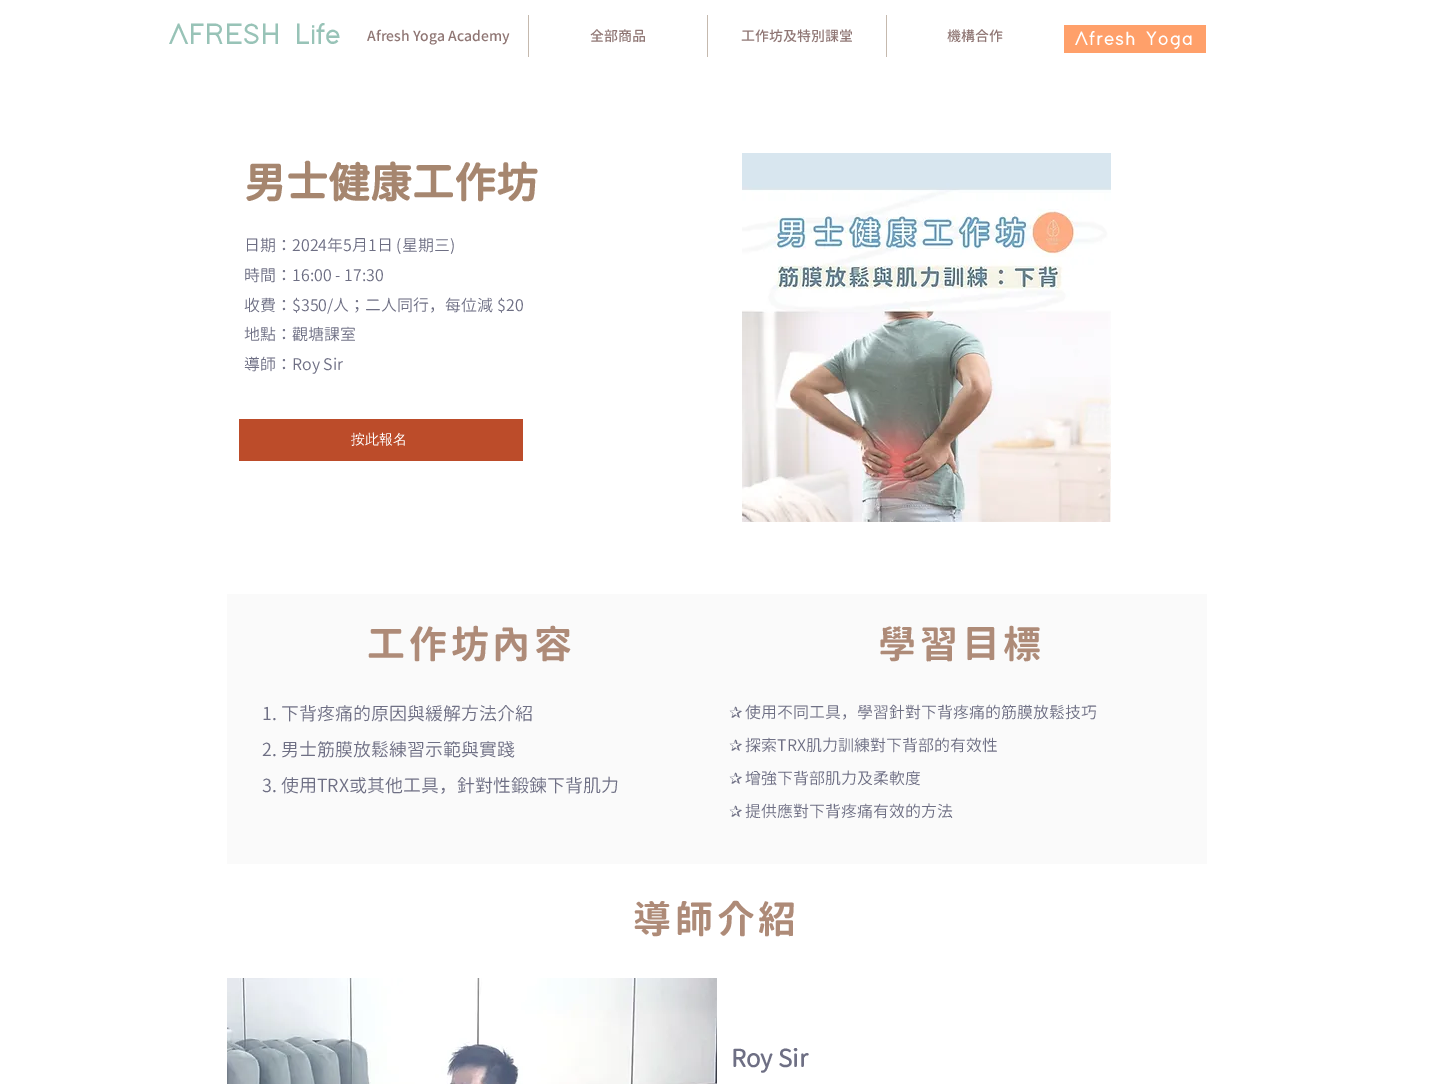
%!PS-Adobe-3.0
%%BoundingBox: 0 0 1433 1084
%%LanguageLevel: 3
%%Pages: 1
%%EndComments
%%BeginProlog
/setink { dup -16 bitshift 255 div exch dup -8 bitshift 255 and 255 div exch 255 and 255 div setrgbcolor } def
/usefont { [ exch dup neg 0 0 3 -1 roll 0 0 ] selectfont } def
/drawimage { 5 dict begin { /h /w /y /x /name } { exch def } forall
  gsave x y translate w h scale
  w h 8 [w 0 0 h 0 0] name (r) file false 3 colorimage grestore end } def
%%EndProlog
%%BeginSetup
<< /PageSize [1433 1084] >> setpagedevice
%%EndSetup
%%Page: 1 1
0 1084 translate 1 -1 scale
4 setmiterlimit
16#FFFFFF setink
0 0 1433 1084 rectfill
/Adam-Bold 30 usefont
16#98C3B7 setink
169 44 moveto (AFRESH Life) show
/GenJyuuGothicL-Medium 14 usefont
16#8F7674 setink
367 41 moveto (Afresh Yoga Academy) show
16#C5B9AE setink
528 15 1 42 rectfill
16#8F7674 setink
590 41 moveto (全部商品) show
16#C5B9AE setink
707 15 1 42 rectfill
16#8F7674 setink
741 41 moveto (工作坊及特別課堂) show
16#C5B9AE setink
886 15 1 42 rectfill
16#8F7674 setink
947 41 moveto (機構合作) show
16#FFA06A setink
1064 25 142 28 rectfill
/Adam-Bold 20 usefont
16#FFFFFF setink
1075 45 moveto 1 0 (Afresh Yoga) ashow
/GenJyuuGothicL-Bold 42 usefont
16#A6866F setink
244 198 moveto (男士健康工作坊) show
(img1.raw) 742 153 369 369 drawimage
/GenJyuuGothicL-Light 16 usefont
16#6E6F84 setink
[
    [(日期：2024年5月1日 \(星期三\)) 244 251]
    [(時間：16:00 - 17:30) 244 281]
    [(收費：$350/人；二人同行，每位減 $20) 244 311]
    [(地點：觀塘課室) 244 340]
    [(導師：Roy Sir) 244 370]
] { aload pop moveto show } forall
16#BC4C2A setink
239 419 284 42 rectfill
/WenQuanYiZenHei-Medium 14 usefont
16#FFFFFF setink
351 444 moveto (按此報名) show
16#FAFAFA setink
227 594 980 270 rectfill
/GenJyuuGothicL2-Bold 38 usefont
16#AE8B78 setink
367 658 moveto 3.75 0 (工作坊內容) ashow
/GenJyuuGothicL-Light 18 usefont
16#6E6F84 setink
[
    [(1. 下背疼痛的原因與緩解方法介紹) 262 720]
    [(2. 男士筋膜放鬆練習示範與實踐) 262 756]
    [(3. 使用TRX或其他工具，針對性鍛鍊下背肌力) 262 792]
] { aload pop moveto show } forall
/GenJyuuGothicL2-Bold 38 usefont
16#AE8B78 setink
878 658 moveto 3.75 0 (學習目標) ashow
/DejaVuSans-Regular 16 usefont
16#6E6F84 setink
729 718 moveto (✰) show
/GenJyuuGothicL-Light 16 usefont
745 718 moveto (使用不同工具，學習針對下背疼痛的筋膜放鬆技巧) show
/DejaVuSans-Regular 16 usefont
729 751 moveto (✰) show
/GenJyuuGothicL-Light 16 usefont
745 751 moveto (探索TRX肌力訓練對下背部的有效性) show
/DejaVuSans-Regular 16 usefont
729 784 moveto (✰) show
/GenJyuuGothicL-Light 16 usefont
745 784 moveto (增強下背部肌力及柔軟度) show
/DejaVuSans-Regular 16 usefont
729 817 moveto (✰) show
/GenJyuuGothicL-Light 16 usefont
745 817 moveto (提供應對下背疼痛有效的方法) show
/GenJyuuGothicL2-Bold 38 usefont
16#AE8B78 setink
633 933 moveto 3.75 0 (導師介紹) ashow
(img2.raw) 227 978 490 106 drawimage
/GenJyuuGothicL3-Bold 24 usefont
16#6E6F84 setink
731 1067 moveto (Roy Sir) show
showpage
%%EOF
